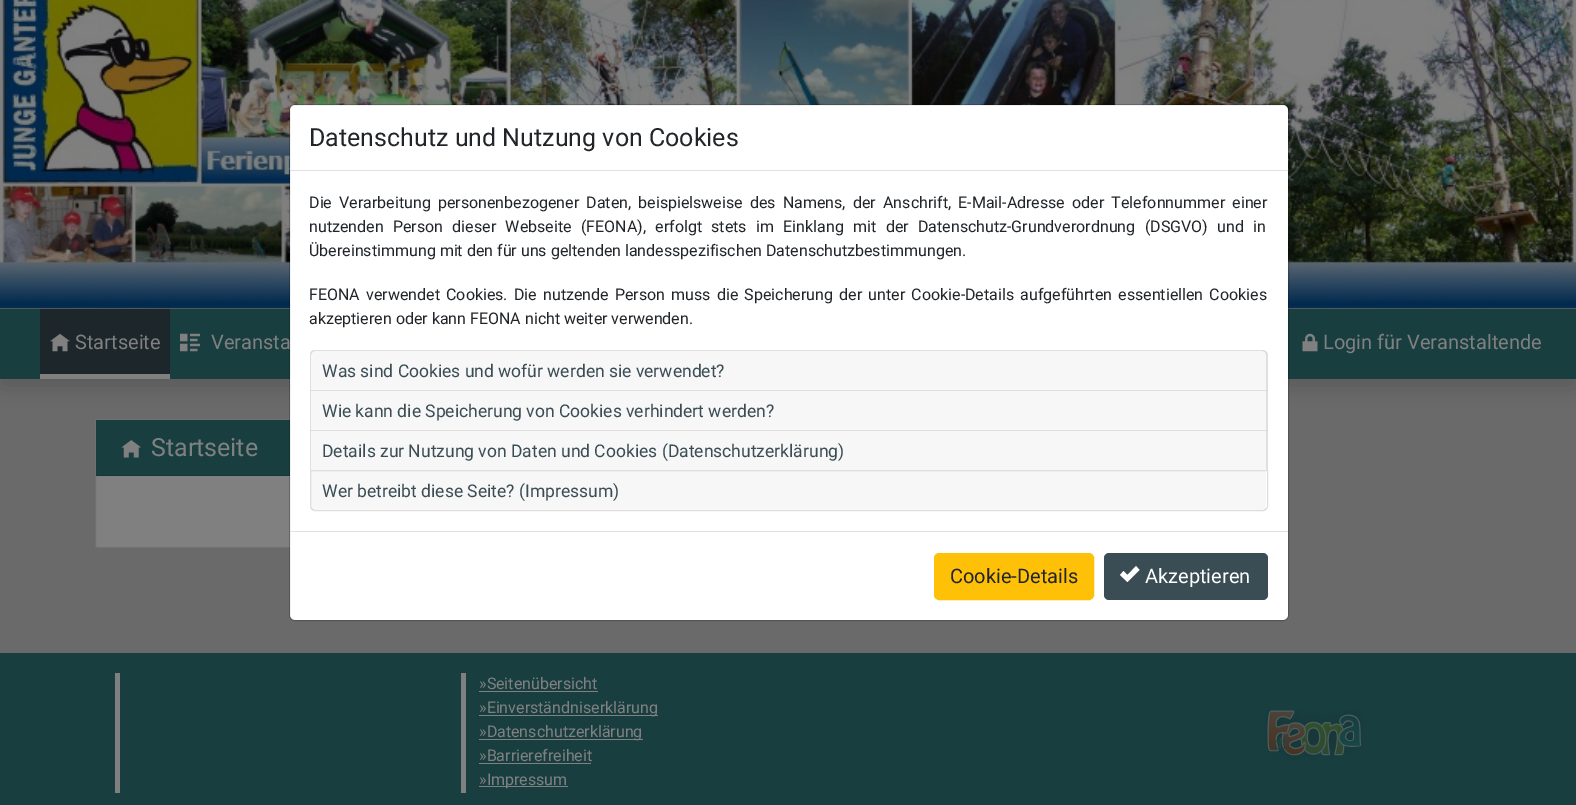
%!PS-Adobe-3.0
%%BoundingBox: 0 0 1576 805
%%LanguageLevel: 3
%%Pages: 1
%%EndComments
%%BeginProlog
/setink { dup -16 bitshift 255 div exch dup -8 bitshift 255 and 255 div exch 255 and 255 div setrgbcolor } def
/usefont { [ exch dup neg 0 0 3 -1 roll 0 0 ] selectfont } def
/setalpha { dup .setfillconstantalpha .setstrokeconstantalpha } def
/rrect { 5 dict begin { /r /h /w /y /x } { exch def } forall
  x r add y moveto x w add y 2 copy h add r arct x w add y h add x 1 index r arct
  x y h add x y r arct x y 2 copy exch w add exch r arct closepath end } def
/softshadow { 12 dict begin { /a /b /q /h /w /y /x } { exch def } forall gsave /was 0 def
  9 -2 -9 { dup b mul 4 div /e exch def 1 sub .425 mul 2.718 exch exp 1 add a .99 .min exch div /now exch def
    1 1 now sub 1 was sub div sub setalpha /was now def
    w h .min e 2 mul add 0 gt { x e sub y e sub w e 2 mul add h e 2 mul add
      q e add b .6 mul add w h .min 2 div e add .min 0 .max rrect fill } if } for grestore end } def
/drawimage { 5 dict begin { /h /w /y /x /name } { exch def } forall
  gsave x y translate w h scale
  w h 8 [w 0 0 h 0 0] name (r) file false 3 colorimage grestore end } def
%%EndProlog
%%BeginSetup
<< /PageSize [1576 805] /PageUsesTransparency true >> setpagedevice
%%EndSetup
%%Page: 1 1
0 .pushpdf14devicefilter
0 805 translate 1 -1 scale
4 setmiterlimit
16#6A6A6A setink
0 0 1576 805 rectfill
(img1.raw) 0 0 1576 309 drawimage
16#808080 setink
96 476 194 71 rectfill
16#707070 setink
95.5 419.5 912 128 rectstroke
16#000000 setink
0 319 1576 70 0 10 0.15 softshadow
16#183E40 setink
0 309 1576 70 rectfill
16#FFFFFF setink
290 105 998 515 5 rrect fill
/Roboto-Regular 20 usefont
16#808080 setink
211 349 moveto (Veransta) show
16#183E40 setink
96 420 194 55 rectfill
16#153738 setink
96 475 194 1 rectfill
0.2 setalpha
16#000000 setink
289.5 104.5 999 516 5.5 rrect stroke
1 setalpha
16#DEE2E6 setink
290 170 998 1 rectfill
/Roboto-Regular 25 usefont
16#212529 setink
309 146 moveto (Datenschutz und Nutzung von Cookies) show
/Roboto-Regular 16 usefont
309 208 moveto 3.25 0 32 (Die Verarbeitung personenbezogener Daten, beispielsweise des Namens, der Anschrift, E-Mail-Adresse oder Telefonnummer einer) widthshow
309 232 moveto 5.4 0 32 (nutzenden Person dieser Webseite \(FEONA\), erfolgt stets im Einklang mit der Datenschutz-Grundverordnung \(DSGVO\) und in) widthshow
309 256 moveto (Übereinstimmung mit den für uns geltenden landesspezifischen Datenschutzbestimmungen.) show
309 300 moveto 2.25 0 32 (FEONA verwendet Cookies. Die nutzende Person muss die Speicherung der unter Cookie-Details aufgeführten essentiellen Cookies) widthshow
309 324 moveto (akzeptieren oder kann FEONA nicht weiter verwenden.) show
16#DFDFDF setink
315 350 moveto 1262 350 lineto 1265 350 1268 352 1268 355 curveto 1268 390 lineto 310 390 lineto 310 355 lineto 310 352 312 350 315 350 curveto closepath 315 351 moveto 1262 351 lineto 1265 351 1266 353 1266 355 curveto 1266 390 lineto 311 390 lineto 311 355 lineto 311 353 313 351 315 351 curveto closepath eofill
0.03 setalpha
16#000000 setink
311 351 955 39 rectfill
/Roboto-Regular 17.5 usefont
1 setalpha
16#3A4C54 setink
322 377 moveto (Was sind Cookies und wofür werden sie verwendet?) show
16#DFDFDF setink
310 390 moveto 1268 390 lineto 1266 391 lineto 311 391 lineto closepath fill
0.12 setalpha
16#000000 setink
1268 390 moveto 1268 430 lineto 1266 430 lineto 1266 391 lineto closepath fill
310 430 moveto 310 390 lineto 311 391 lineto 311 430 lineto closepath fill
1 setalpha
16#F7F7F7 setink
311 391 955 39 rectfill
16#3A4C54 setink
322 417 moveto (Wie kann die Speicherung von Cookies verhindert werden?) show
16#DFDFDF setink
310 430 moveto 1268 430 lineto 1266 431 lineto 311 431 lineto closepath fill
0.12 setalpha
16#000000 setink
1268 430 moveto 1268 470 lineto 1266 470 lineto 1266 431 lineto closepath fill
310 470 moveto 310 430 lineto 311 431 lineto 311 470 lineto closepath fill
1 setalpha
16#F7F7F7 setink
311 431 955 39 rectfill
16#3A4C54 setink
322 457 moveto (Details zur Nutzung von Daten und Cookies \(Datenschutzerklärung\)) show
16#DFDFDF setink
310.5 470.5 moveto 1267.5 470.5 lineto 1267.5 506 lineto 1267.5 508.5 1265.5 510.5 1263 510.5 curveto 315 510.5 lineto 312.5 510.5 310.5 508.5 310.5 506 curveto closepath stroke
0.03 setalpha
16#000000 setink
311 471 955 39 rectfill
1 setalpha
16#3A4C54 setink
322 497 moveto (Wer betreibt diese Seite? \(Impressum\)) show
16#DEE2E6 setink
290 531 998 1 rectfill
16#FFC107 setink
934.5 553.5 159 46 4.5 rrect gsave fill grestore
stroke
/Roboto-Regular 20 usefont
16#212529 setink
950 583 moveto (Cookie-Details) show
16#3A4C54 setink
1104 553 164 47 5 rrect fill
16#FFFFFF setink
1136 566 moveto 1139.5 570 lineto 1127.5 582 lineto 1120 575 lineto 1123.5 571 lineto 1127.5 575 lineto closepath fill
1145 583 moveto (Akzeptieren) show
16#1D262A setink
40 309 130 65 rectfill
16#808080 setink
40 374 130 5 rectfill
(img2.raw) 50 333 20 19 drawimage
75 349 moveto (Startseite) show
(img3.raw) 180 333 20 19 drawimage
(img4.raw) 1302 333 16 19 drawimage
1323 349 moveto (Login für Veranstaltende) show
(img5.raw) 121 440 20 18 drawimage
/Roboto-Regular 25 usefont
151 456 moveto (Startseite) show
[
    [0 653 1576 152 16#183E40]
    [115 673 5 120 16#808080]
    [461 673 5 120 16#808080]
] { aload pop setink rectfill } forall
/Roboto-Regular 16 usefont
479 689 moveto (»Seitenübersicht) show
479 691 119 1 rectfill
479 715 179 1 rectfill
479 713 moveto (»Einverständniserklärung) show
479 739 164 1 rectfill
479 737 moveto (»Datenschutzerklärung) show
479 761 moveto (»Barrierefreiheit) show
479 763 112 1 rectfill
479 786 89 1 rectfill
479 785 moveto (»Impressum) show
(img6.raw) 1265 709 98 51 drawimage
16#27423E setink
1273 749 moveto (df) show
.poppdf14devicefilter showpage
%%EOF
